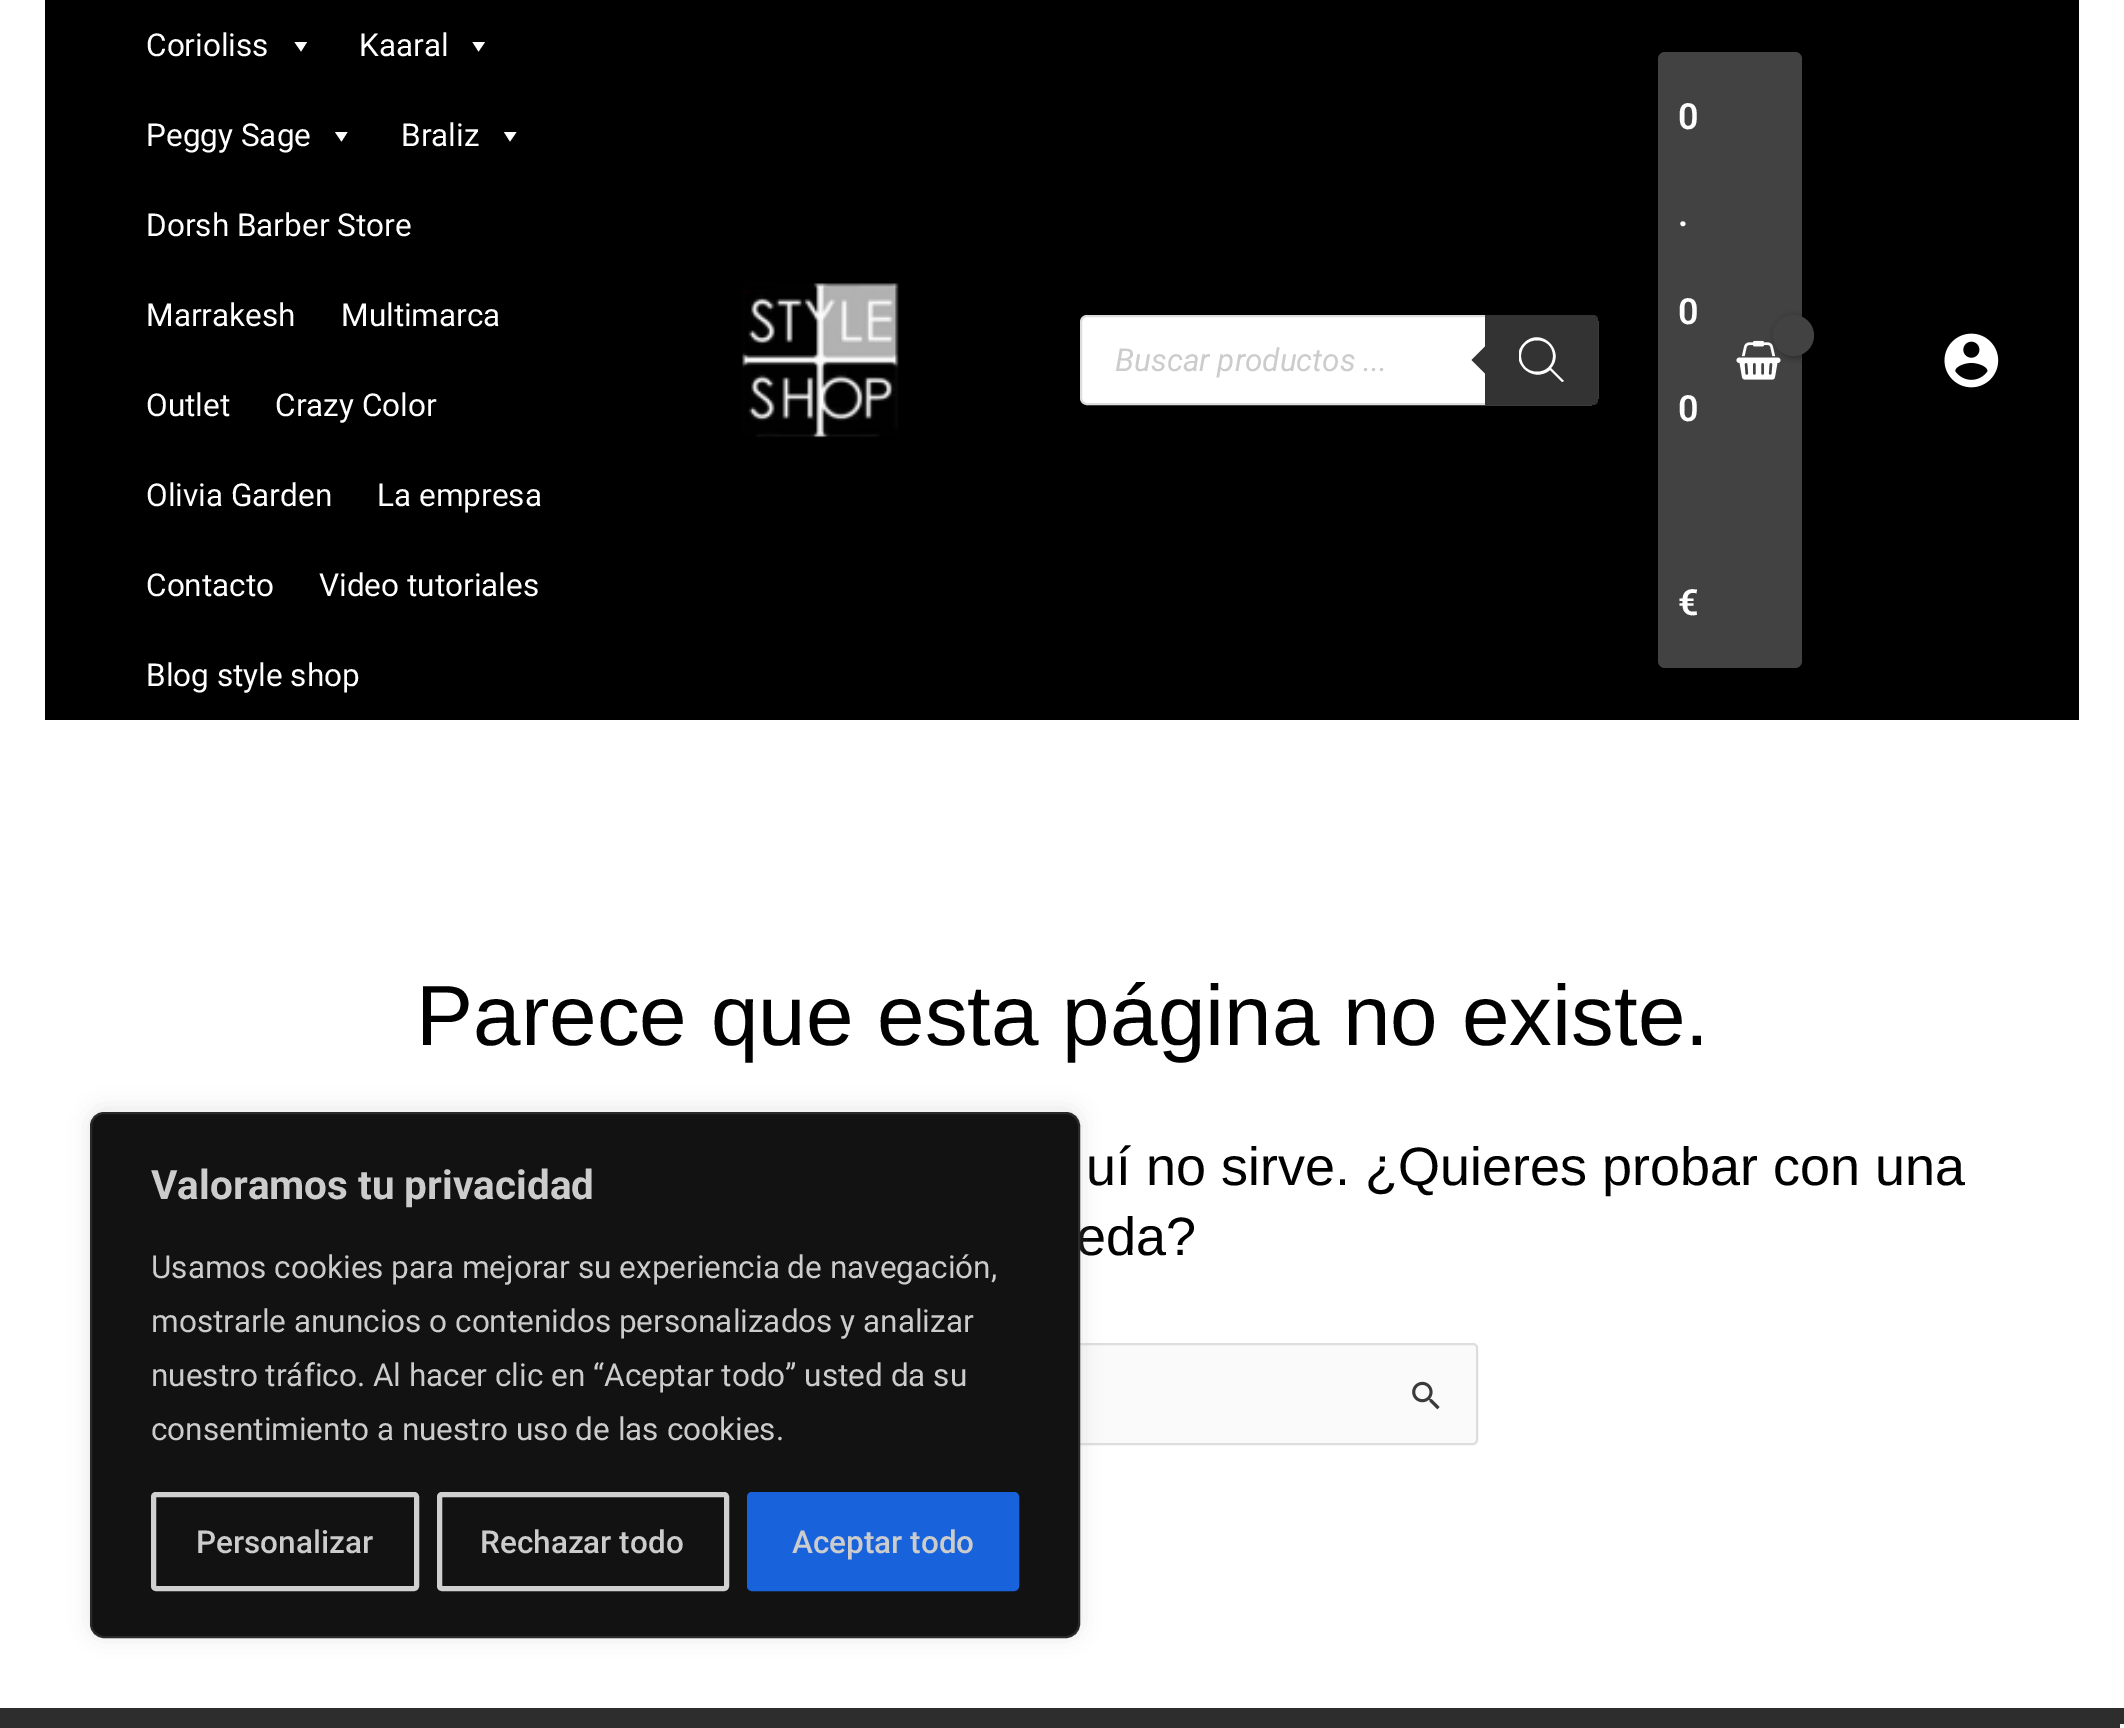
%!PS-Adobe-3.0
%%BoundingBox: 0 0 2124 1728
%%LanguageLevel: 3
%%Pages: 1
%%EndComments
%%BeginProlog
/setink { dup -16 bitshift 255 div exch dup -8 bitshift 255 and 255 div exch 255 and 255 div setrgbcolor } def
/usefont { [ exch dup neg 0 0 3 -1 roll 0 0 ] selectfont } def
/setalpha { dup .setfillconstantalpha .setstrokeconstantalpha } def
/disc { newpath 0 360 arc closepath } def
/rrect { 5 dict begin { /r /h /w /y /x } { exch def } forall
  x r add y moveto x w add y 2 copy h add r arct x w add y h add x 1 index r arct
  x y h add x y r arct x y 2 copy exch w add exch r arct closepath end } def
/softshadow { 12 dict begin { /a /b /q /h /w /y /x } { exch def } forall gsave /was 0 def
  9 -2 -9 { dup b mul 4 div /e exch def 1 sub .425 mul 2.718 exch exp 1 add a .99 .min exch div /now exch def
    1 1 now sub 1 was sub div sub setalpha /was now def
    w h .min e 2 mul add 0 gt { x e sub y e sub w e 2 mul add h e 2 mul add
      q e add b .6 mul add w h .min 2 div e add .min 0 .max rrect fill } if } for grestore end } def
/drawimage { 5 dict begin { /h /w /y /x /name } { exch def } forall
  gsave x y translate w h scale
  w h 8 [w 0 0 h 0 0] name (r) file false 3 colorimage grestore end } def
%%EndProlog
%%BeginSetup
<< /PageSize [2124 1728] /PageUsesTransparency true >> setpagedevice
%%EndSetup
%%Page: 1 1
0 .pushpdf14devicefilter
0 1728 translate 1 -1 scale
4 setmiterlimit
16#FFFFFF setink
0 0 2124 1728 rectfill
16#000000 setink
45 0 2034 720 rectfill
/Roboto-Regular 31.5 usefont
16#FFFFFF setink
146 56 moveto (Corioliss) show
307 42 moveto 301 51.5 lineto 294.5 42 lineto closepath fill
359 56 moveto (Kaaral) show
485 42 moveto 478.5 51.5 lineto 472.5 42 lineto closepath fill
146 146 moveto (Peggy Sage) show
347.5 132 moveto 341.5 141.5 lineto 335 132 lineto closepath fill
401 146 moveto (Braliz) show
516.5 132 moveto 510 141.5 lineto 504 132 lineto closepath fill
[
    [(Dorsh Barber Store) 146 236]
    [(Marrakesh) 146 326]
    [(Multimarca) 341 326]
    [(Outlet) 146 416]
    [(Crazy Color) 275 416]
    [(Olivia Garden) 146 506]
    [(La empresa) 377 506]
    [(Contacto) 146 596]
    [(Video tutoriales) 319 596]
    [(Blog style shop) 146 686]
] { aload pop moveto show } forall
(img1.raw) 742 283 157 155 drawimage
1081 316 516 88 6 rrect gsave fill grestore
16#DDDDDD setink
2 setlinewidth
stroke
/Roboto-Italic 31.5 usefont
16#CCCCCC setink
1115 371 moveto (Buscar productos ...) show
16#333333 setink
1485 315 moveto 1593 315 lineto 1596 315 1598 317 1598 320 curveto 1598 400 lineto 1598 403 1596 405 1593 405 curveto 1485 405 lineto closepath fill
1489.5 342 moveto 1489.5 378 lineto 1471.5 360 lineto closepath fill
gsave
1519 331 45 58 rectclip
16#FFFFFF setink
1564 381 moveto 1551 368 lineto 1566 351 1541 326 1524 343 curveto 1507 360 1532 385 1550 370 curveto 1562 382 lineto closepath 1521 356 moveto 1521 335 1553 335 1553 356 curveto 1553 377 1521 377 1521 356 curveto closepath fill
grestore
16#424242 setink
1658 52 144 616 7 rrect fill
/Roboto-SemiBold 36 usefont
16#FFFFFF setink
[
    [(0) 1678 129]
    [(.) 1678 226]
    [(0) 1678 324]
    [(0) 1678 421]
    [(€) 1678 615]
] { aload pop moveto show } forall
(img2.raw) 1736 340 45 40 drawimage
16#000000 setink
1775 317 41 41 20.5 3.5 0.3 softshadow
16#424242 setink
1793.5 335.5 20.5 disc fill
(img3.raw) 1944 333 55 55 drawimage
/LiberationSans-Regular 85.5 usefont
16#000000 setink
416 1045 moveto (Parece que esta página no existe.) show
/LiberationSans-Regular 54 usefont
1086 1185 moveto (uí no sirve. ¿Quieres probar con una) show
1076 1255 moveto (eda?) show
16#FAFAFA setink
647 1344 830 100 4 rrect gsave fill grestore
16#DDDDDD setink
stroke
(img4.raw) 1412 1381 28 29 drawimage
16#2D2D2D setink
0 1708 2124 20 rectfill
16#ACABAB setink
90 1109 990 527 14 11 0.3 softshadow
16#121212 setink
91 1113 988 524 13 rrect gsave fill grestore
16#2A2A2A setink
stroke
/Roboto-Bold 40.5 usefont
16#CCCCCC setink
151 1199 moveto (Valoramos tu privacidad) show
/Roboto-Regular 31.5 usefont
[
    [(Usamos cookies para mejorar su experiencia de navegación,) 151 1278]
    [(mostrarle anuncios o contenidos personalizados y analizar) 151 1332]
    [(nuestro tráfico. Al hacer clic en “Aceptar todo” usted da su) 151 1386]
    [(consentimiento a nuestro uso de las cookies.) 151 1440]
] { aload pop moveto show } forall
16#D0D0D0 setink
5 setlinewidth
153.5 1494.5 263 94 2.5 rrect stroke
/Roboto-Medium 31.5 usefont
16#CCCCCC setink
196 1553 moveto (Personalizar) show
16#D0D0D0 setink
439.5 1494.5 287 94 2.5 rrect stroke
16#CCCCCC setink
480 1553 moveto (Rechazar todo) show
16#1863DC setink
749.5 1494.5 267 94 2.5 rrect gsave fill grestore
stroke
16#CCCCCC setink
792 1553 moveto (Aceptar todo) show
16#F5F5F5 setink
2120 1724 4 4 rectfill
.poppdf14devicefilter showpage
%%EOF
